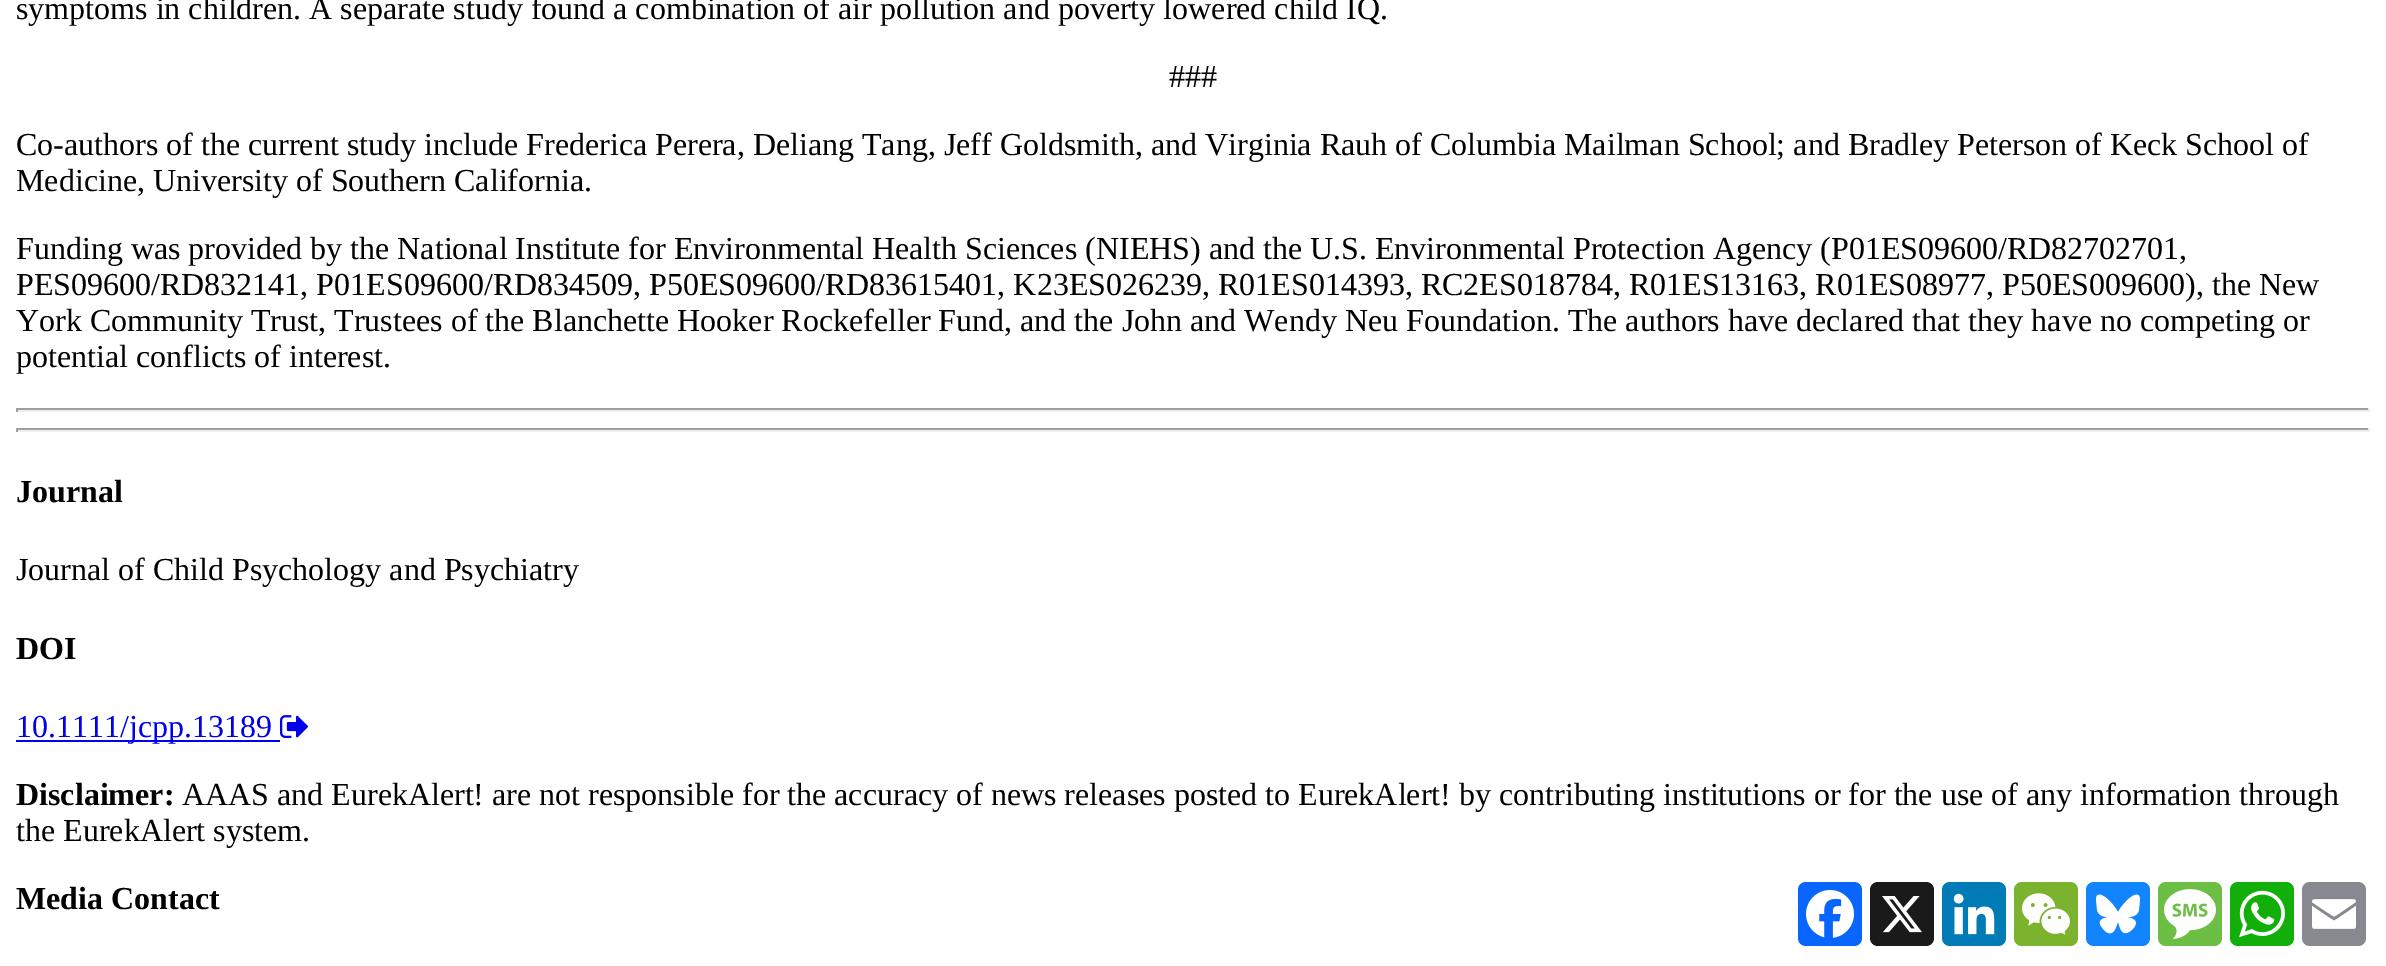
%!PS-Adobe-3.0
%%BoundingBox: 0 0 2386 966
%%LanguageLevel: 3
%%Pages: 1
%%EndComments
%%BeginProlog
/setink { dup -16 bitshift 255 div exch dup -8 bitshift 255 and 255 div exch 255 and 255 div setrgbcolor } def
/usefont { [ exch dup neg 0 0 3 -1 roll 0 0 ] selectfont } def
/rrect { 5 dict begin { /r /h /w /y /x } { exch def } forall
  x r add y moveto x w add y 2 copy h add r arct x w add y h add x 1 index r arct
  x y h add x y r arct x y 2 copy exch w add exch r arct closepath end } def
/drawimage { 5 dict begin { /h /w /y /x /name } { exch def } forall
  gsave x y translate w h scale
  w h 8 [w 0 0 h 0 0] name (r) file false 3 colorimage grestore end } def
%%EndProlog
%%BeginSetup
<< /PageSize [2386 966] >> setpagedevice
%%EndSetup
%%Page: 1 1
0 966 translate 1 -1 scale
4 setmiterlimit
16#FFFFFF setink
0 0 2386 966 rectfill
/LiberationSerif-Regular 32 usefont
16#000000 setink
[
    [(symptoms in children. A separate study found a combination of air pollution and poverty lowered child IQ.) 16 19]
    [(###) 1169 87]
    [(Co-authors of the current study include Frederica Perera, Deliang Tang, Jeff Goldsmith, and Virginia Rauh of Columbia Mailman School; and Bradley Peterson of Keck School of) 16 155]
    [(Medicine, University of Southern California.) 16 191]
    [(Funding was provided by the National Institute for Environmental Health Sciences \(NIEHS\) and the U.S. Environmental Protection Agency \(P01ES09600/RD82702701,) 16 259]
    [(PES09600/RD832141, P01ES09600/RD834509, P50ES09600/RD83615401, K23ES026239, R01ES014393, RC2ES018784, R01ES13163, R01ES08977, P50ES009600\), the New) 16 295]
    [(York Community Trust, Trustees of the Blanchette Hooker Rockefeller Fund, and the John and Wendy Neu Foundation. The authors have declared that they have no competing or) 16 331]
    [(potential conflicts of interest.) 16 367]
] { aload pop moveto show } forall
[
    [16 408 2354 2 16#9F9F9F]
    [2368 408 2 4 16#EEEEEE]
    [16 410 2354 2 16#EEEEEE]
    [16 408 2 4 16#9F9F9F]
    [16 428 2354 2 16#9F9F9F]
    [2368 428 2 4 16#EEEEEE]
    [16 430 2354 2 16#EEEEEE]
    [16 428 2 4 16#9F9F9F]
] { aload pop setink rectfill } forall
/LiberationSerif-Bold 32 usefont
16#000000 setink
16 502 moveto (Journal) show
/LiberationSerif-Regular 32 usefont
16 580 moveto (Journal of Child Psychology and Psychiatry) show
/LiberationSerif-Bold 32 usefont
16 659 moveto (DOI) show
16#0000EE setink
16 740 264 2 rectfill
/LiberationSerif-Regular 32 usefont
16 737 moveto (10.1111/jcpp.13189) show
(img1.raw) 280 715 28 23 drawimage
/LiberationSerif-Bold 32 usefont
16#000000 setink
16 805 moveto (Disclaimer:) show
/LiberationSerif-Regular 32 usefont
182 805 moveto (AAAS and EurekAlert! are not responsible for the accuracy of news releases posted to EurekAlert! by contributing institutions or for the use of any information through) show
16 841 moveto (the EurekAlert system.) show
16#0866FF setink
1798 882 64 64 8 rrect fill
(img2.raw) 1806 890 48 48 drawimage
16#1A1A1A setink
1870 882 64 64 8 rrect fill
(img3.raw) 1882 896 40 37 drawimage
16#007BB5 setink
1942 882 64 64 8 rrect fill
(img4.raw) 1953 893 42 42 drawimage
16#7BB32E setink
2014 882 64 64 8 rrect fill
(img5.raw) 2022 893 48 42 drawimage
16#1285FE setink
2086 882 64 64 8 rrect fill
(img6.raw) 2096 894 44 40 drawimage
16#6CBE45 setink
2158 882 64 64 8 rrect fill
(img7.raw) 2164 889 52 50 drawimage
16#12AF0A setink
2230 882 64 64 8 rrect fill
(img8.raw) 2239 890 46 48 drawimage
16#888990 setink
2302 882 64 64 8 rrect fill
(img9.raw) 2312 899 44 30 drawimage
/LiberationSerif-Bold 32 usefont
16#000000 setink
16 909 moveto (Media Contact) show
showpage
%%EOF
